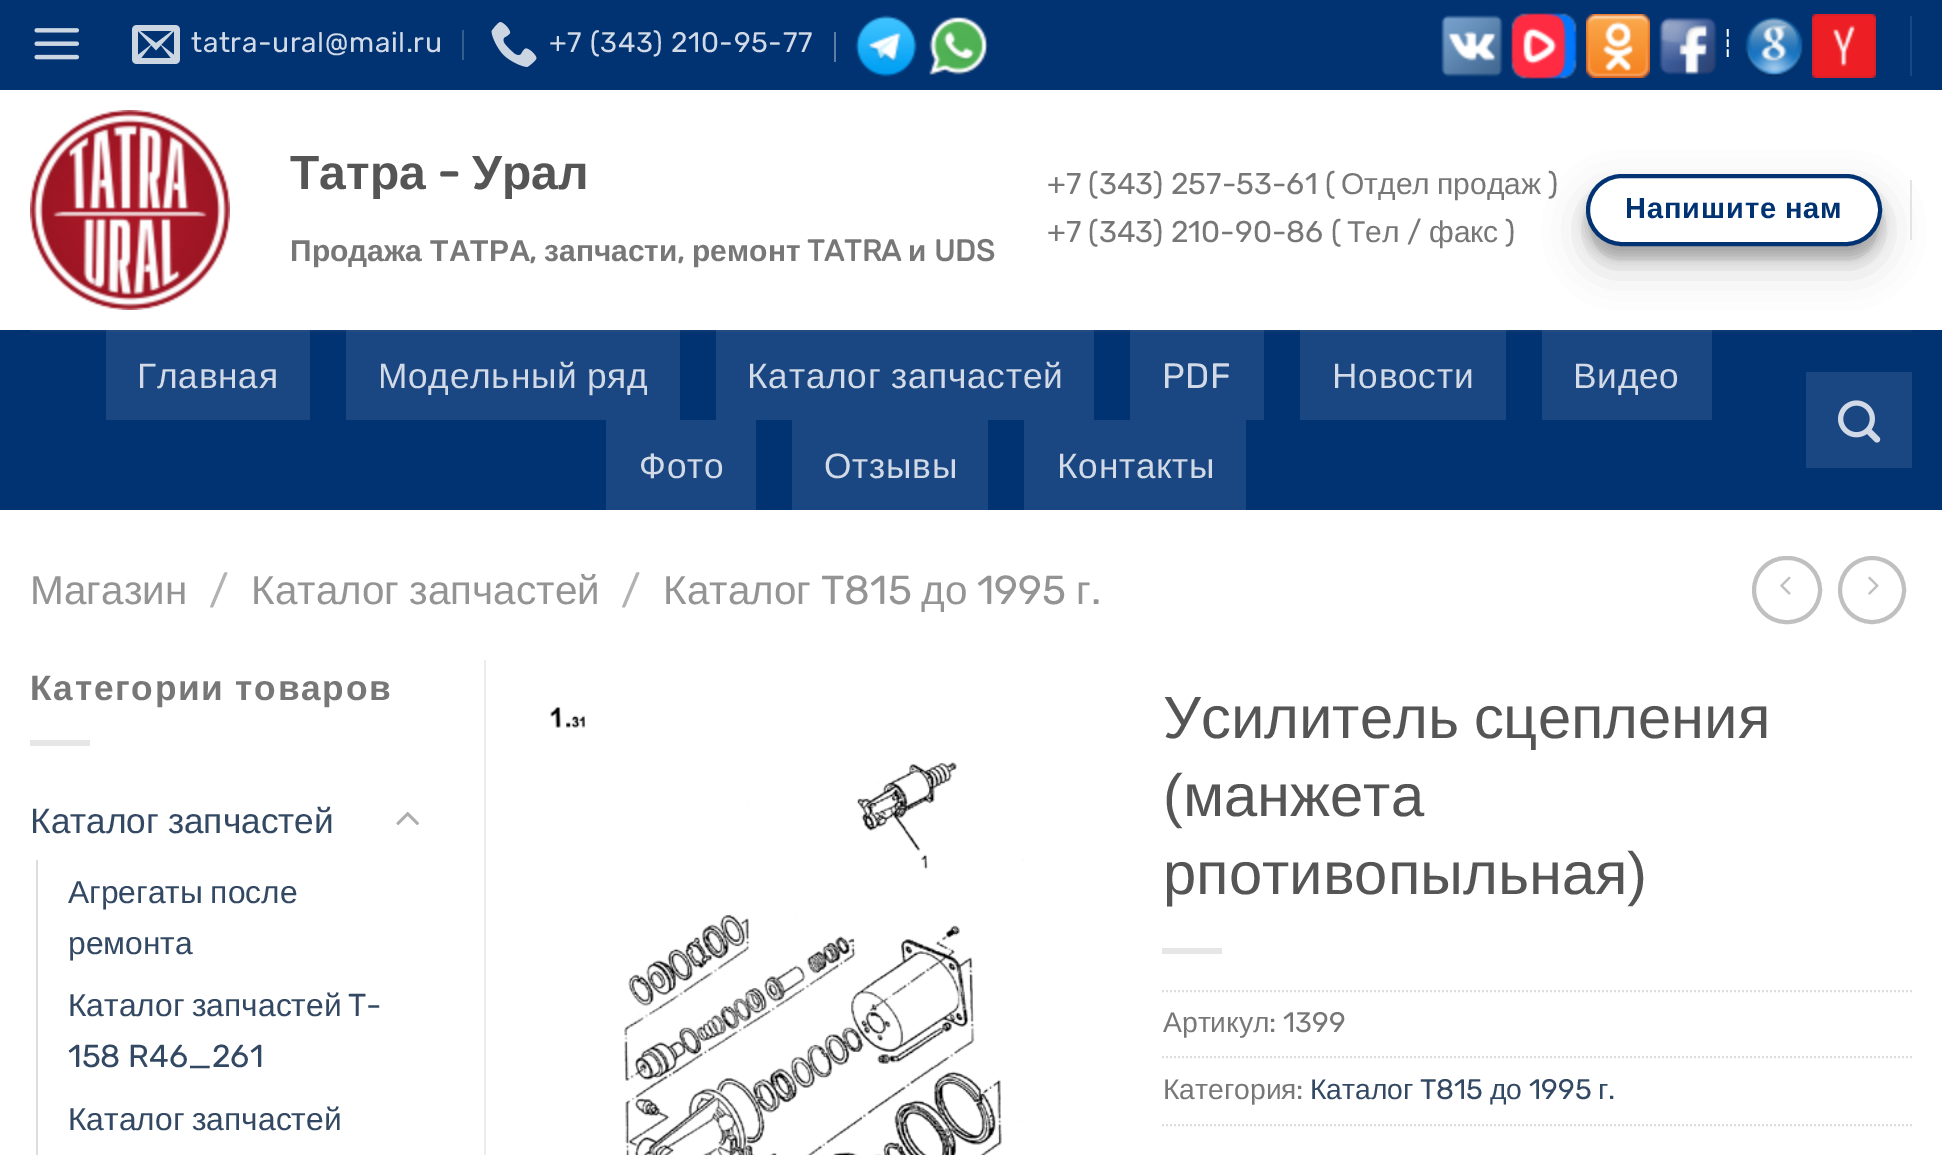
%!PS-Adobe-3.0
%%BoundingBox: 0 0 1942 1155
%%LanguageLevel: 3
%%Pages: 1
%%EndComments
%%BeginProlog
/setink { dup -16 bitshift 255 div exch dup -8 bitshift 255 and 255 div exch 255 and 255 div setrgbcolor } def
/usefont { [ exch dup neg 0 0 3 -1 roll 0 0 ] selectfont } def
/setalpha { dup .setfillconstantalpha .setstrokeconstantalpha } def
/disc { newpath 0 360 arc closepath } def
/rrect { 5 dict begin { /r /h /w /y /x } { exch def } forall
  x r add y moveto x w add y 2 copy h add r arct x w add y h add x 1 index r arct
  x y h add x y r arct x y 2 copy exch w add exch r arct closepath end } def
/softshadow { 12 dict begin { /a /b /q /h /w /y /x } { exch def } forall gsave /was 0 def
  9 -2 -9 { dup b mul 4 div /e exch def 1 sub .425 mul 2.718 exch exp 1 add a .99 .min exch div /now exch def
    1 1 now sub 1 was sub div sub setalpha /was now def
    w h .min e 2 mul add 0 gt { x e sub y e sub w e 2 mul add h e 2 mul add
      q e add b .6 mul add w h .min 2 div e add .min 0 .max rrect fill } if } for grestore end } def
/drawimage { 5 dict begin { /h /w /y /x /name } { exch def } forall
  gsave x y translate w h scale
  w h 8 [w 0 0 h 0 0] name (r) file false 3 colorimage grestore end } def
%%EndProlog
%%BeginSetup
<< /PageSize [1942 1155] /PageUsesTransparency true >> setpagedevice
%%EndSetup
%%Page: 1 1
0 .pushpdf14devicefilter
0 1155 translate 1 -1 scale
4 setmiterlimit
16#FFFFFF setink
0 0 1942 1155 rectfill
16#013373 setink
0 0 1942 90 rectfill
(img1.raw) 34 28 45 32 drawimage
(img2.raw) 132 25 48 39 drawimage
/Rubik-Regular 28.25 usefont
16#D1DAE6 setink
191 52 moveto 0.6 0 (tatra-ural@mail.ru) ashow
16#345C8F setink
462 30 2 30 rectfill
(img3.raw) 491 22 46 45 drawimage
16#D1DAE6 setink
549 52 moveto 0.6 0 (+7 \(343\) 210-95-77) ashow
(img4.raw) 855 15 62 62 drawimage
16#5D7DA5 setink
834 32 2 30 rectfill
(img5.raw) 929 16 60 60 drawimage
(img6.raw) 1441 15 62 62 drawimage
(img7.raw) 1511 13 66 66 drawimage
(img8.raw) 1586 14 64 64 drawimage
(img9.raw) 1659 17 58 58 drawimage
/DejaVuSans-Regular 26 usefont
16#FFFFFF setink
1720 52 moveto (┆) show
(img10.raw) 1745 17 59 60 drawimage
(img11.raw) 1812 14 64 64 drawimage
16#1A4781 setink
1910 16 2 60 rectfill
(img12.raw) 30 110 200 200 drawimage
/LiberationSans-Bold 48 usefont
16#555555 setink
290 189 moveto (Татра) show
/Rubik-Bold 48 usefont
437 189 moveto (-) show
/LiberationSans-Bold 48 usefont
472 189 moveto (Урал) show
/LiberationSans-Bold 30 usefont
16#777777 setink
290 261 moveto (Продажа ТАТРА) show
/Rubik-Bold 30 usefont
529 261 moveto (,) show
/LiberationSans-Bold 30 usefont
544 261 moveto (запчасти) show
/Rubik-Bold 30 usefont
677 261 moveto (,) show
/LiberationSans-Bold 30 usefont
692 261 moveto (ремонт) show
/Rubik-Bold 30 usefont
807 261 moveto (TATRA) show
/LiberationSans-Bold 30 usefont
908 261 moveto (и) show
/Rubik-Bold 30 usefont
934 261 moveto (UDS) show
/Rubik-Regular 30 usefont
1047 194 moveto (+7 \(343\) 257-53-61 \() show
/LiberationSans-Regular 30 usefont
1341 194 moveto (Отдел) show
1437 194 moveto (продаж) show
/Rubik-Regular 30 usefont
1548 194 moveto (\)) show
1047 242 moveto (+7 \(343\) 210-90-86 \() show
/LiberationSans-Regular 30 usefont
1347 242 moveto (Тел) show
/Rubik-Regular 30 usefont
1407 242 moveto (/) show
/LiberationSans-Regular 30 usefont
1429 242 moveto (факс) show
/Rubik-Regular 30 usefont
1505 242 moveto (\)) show
gsave
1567 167 moveto 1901 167 lineto 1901 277 lineto 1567 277 lineto closepath 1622 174 moveto 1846 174 lineto 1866 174 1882 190 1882 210 curveto 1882 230 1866 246 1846 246 curveto 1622 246 lineto 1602 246 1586 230 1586 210 curveto 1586 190 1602 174 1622 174 curveto closepath eoclip newpath
16#000000 setink
1586 186 296 72 36 6 0.22 softshadow
grestore
gsave
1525 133 moveto 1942 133 lineto 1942 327 lineto 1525 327 lineto closepath 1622 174 moveto 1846 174 lineto 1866 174 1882 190 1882 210 curveto 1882 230 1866 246 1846 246 curveto 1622 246 lineto 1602 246 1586 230 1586 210 curveto 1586 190 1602 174 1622 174 curveto closepath eoclip newpath
16#000000 setink
1586 194 296 72 36 20 0.19 softshadow
grestore
16#013373 setink
4 setlinewidth
1588 176 292 68 34 rrect stroke
/LiberationSans-Bold 29 usefont
1625 218 moveto -1 0 32 0.9 0 (Напишите нам) awidthshow
[
    [1910 180 2 60 16#E4E4E4]
    [0 330 1942 180 16#013373]
    [30 330 1882 2 16#0D3A73]
    [106 332 204 88 16#1A4781]
    [106 330 204 2 16#234C80]
] { aload pop setink rectfill } forall
/LiberationSans-Regular 35.25 usefont
16#D1DAE6 setink
137 388 moveto 0.75 0 (Главная) ashow
16#1A4781 setink
346 332 334 88 rectfill
16#234C80 setink
346 330 334 2 rectfill
16#D1DAE6 setink
378 388 moveto -1 0 32 0.75 0 (Модельный ряд) awidthshow
16#1A4781 setink
716 332 378 88 rectfill
16#234C80 setink
716 330 378 2 rectfill
16#D1DAE6 setink
747 388 moveto -1 0 32 0.75 0 (Каталог запчастей) awidthshow
16#1A4781 setink
1130 332 134 88 rectfill
16#234C80 setink
1130 330 134 2 rectfill
/Rubik-Regular 35.25 usefont
16#D1DAE6 setink
1162 388 moveto 0.75 0 (PDF) ashow
16#1A4781 setink
1300 332 206 88 rectfill
16#234C80 setink
1300 330 206 2 rectfill
/LiberationSans-Regular 35.25 usefont
16#D1DAE6 setink
1332 388 moveto 0.75 0 (Новости) ashow
16#1A4781 setink
1542 332 170 88 rectfill
16#234C80 setink
1542 330 170 2 rectfill
16#D1DAE6 setink
1573 388 moveto 0.75 0 (Видео) ashow
16#1A4781 setink
606 420 150 90 rectfill
16#D1DAE6 setink
639 478 moveto 0.75 0 (Фото) ashow
16#1A4781 setink
792 420 196 90 rectfill
16#D1DAE6 setink
824 478 moveto 0.75 0 (Отзывы) ashow
16#1A4781 setink
1024 420 222 90 rectfill
16#D1DAE6 setink
1057 478 moveto 0.75 0 (Контакты) ashow
16#1A4781 setink
1806 372 106 96 rectfill
(img13.raw) 1838 400 43 43 drawimage
/LiberationSans-Regular 40.5 usefont
16#949494 setink
30 604 moveto (Магазин) show
/Rubik-Regular 40.5 usefont
16#B2B2B2 setink
209 604 moveto (/) show
/LiberationSans-Regular 40.5 usefont
16#949494 setink
251 604 moveto -1 0 32 (Каталог запчастей) widthshow
/Rubik-Regular 40.5 usefont
16#B2B2B2 setink
621 604 moveto (/) show
/LiberationSans-Regular 40.5 usefont
16#949494 setink
663 604 moveto (Каталог) show
/Rubik-Regular 40.5 usefont
821 604 moveto (T815) show
/LiberationSans-Regular 40.5 usefont
921 604 moveto (до) show
/Rubik-Regular 40.5 usefont
977 604 moveto (1995) show
/LiberationSans-Regular 40.5 usefont
1076 604 moveto (г) show
/Rubik-Regular 40.5 usefont
1091 604 moveto (.) show
16#C0C0C0 setink
1754 558 66 64 32 rrect stroke
(img14.raw) 1780 576 11 19 drawimage
1872 590 32 disc stroke
(img15.raw) 1868 576 11 19 drawimage
16#ECECEC setink
484 660 2 495 rectfill
/LiberationSans-Bold 35.25 usefont
16#777777 setink
30 700 moveto -1 0 32 1.75 0 (Категории товаров) awidthshow
16#E6E6E6 setink
30 740 60 6 rectfill
/LiberationSans-Regular 35.25 usefont
16#334862 setink
30 833 moveto -1 0 32 (Каталог запчастей) widthshow
(img16.raw) 396 811 23 14 drawimage
16#DDDDDD setink
36 860 2 295 rectfill
/LiberationSans-Regular 31.75 usefont
16#334862 setink
68 903 moveto -1 0 32 (Агрегаты после) widthshow
68 954 moveto (ремонта) show
68 1016 moveto -1 0 32 (Каталог запчастей) widthshow
/Rubik-Regular 31.75 usefont
348 1016 moveto (T-) show
68 1067 moveto (158 R46_261) show
/LiberationSans-Regular 31.75 usefont
68 1130 moveto -1 0 32 (Каталог запчастей) widthshow
(img17.raw) 550 706 515 449 drawimage
/LiberationSans-Regular 59.75 usefont
16#555555 setink
1163 738 moveto -2 0 32 (Усилитель сцепления) widthshow
1163 816 moveto (\(манжета) show
1163 894 moveto (рпотивопыльная\)) show
16#E6E6E6 setink
1162 948 60 6 rectfill
16#DDDDDD setink
2 setlinewidth
[2 2] 0 setdash
1162 991 moveto 1912 991 lineto stroke
/LiberationSans-Regular 28.25 usefont
16#777777 setink
1163 1032 moveto (Артикул) show
/Rubik-Regular 28.25 usefont
1269 1032 moveto (: 1399) show
16#DDDDDD setink
1162 1057 moveto 1912 1057 lineto stroke
/LiberationSans-Regular 28.25 usefont
16#777777 setink
1163 1099 moveto (Категория) show
/Rubik-Regular 28.25 usefont
1296 1099 moveto (:) show
/LiberationSans-Regular 28.25 usefont
16#334862 setink
1310 1099 moveto (Каталог) show
/Rubik-Regular 28.25 usefont
1420 1099 moveto (T815) show
/LiberationSans-Regular 28.25 usefont
1490 1099 moveto (до) show
/Rubik-Regular 28.25 usefont
1529 1099 moveto (1995) show
/LiberationSans-Regular 28.25 usefont
1598 1099 moveto (г) show
/Rubik-Regular 28.25 usefont
1608 1099 moveto (.) show
16#DDDDDD setink
1162 1125 moveto 1912 1125 lineto stroke
.poppdf14devicefilter showpage
%%EOF
